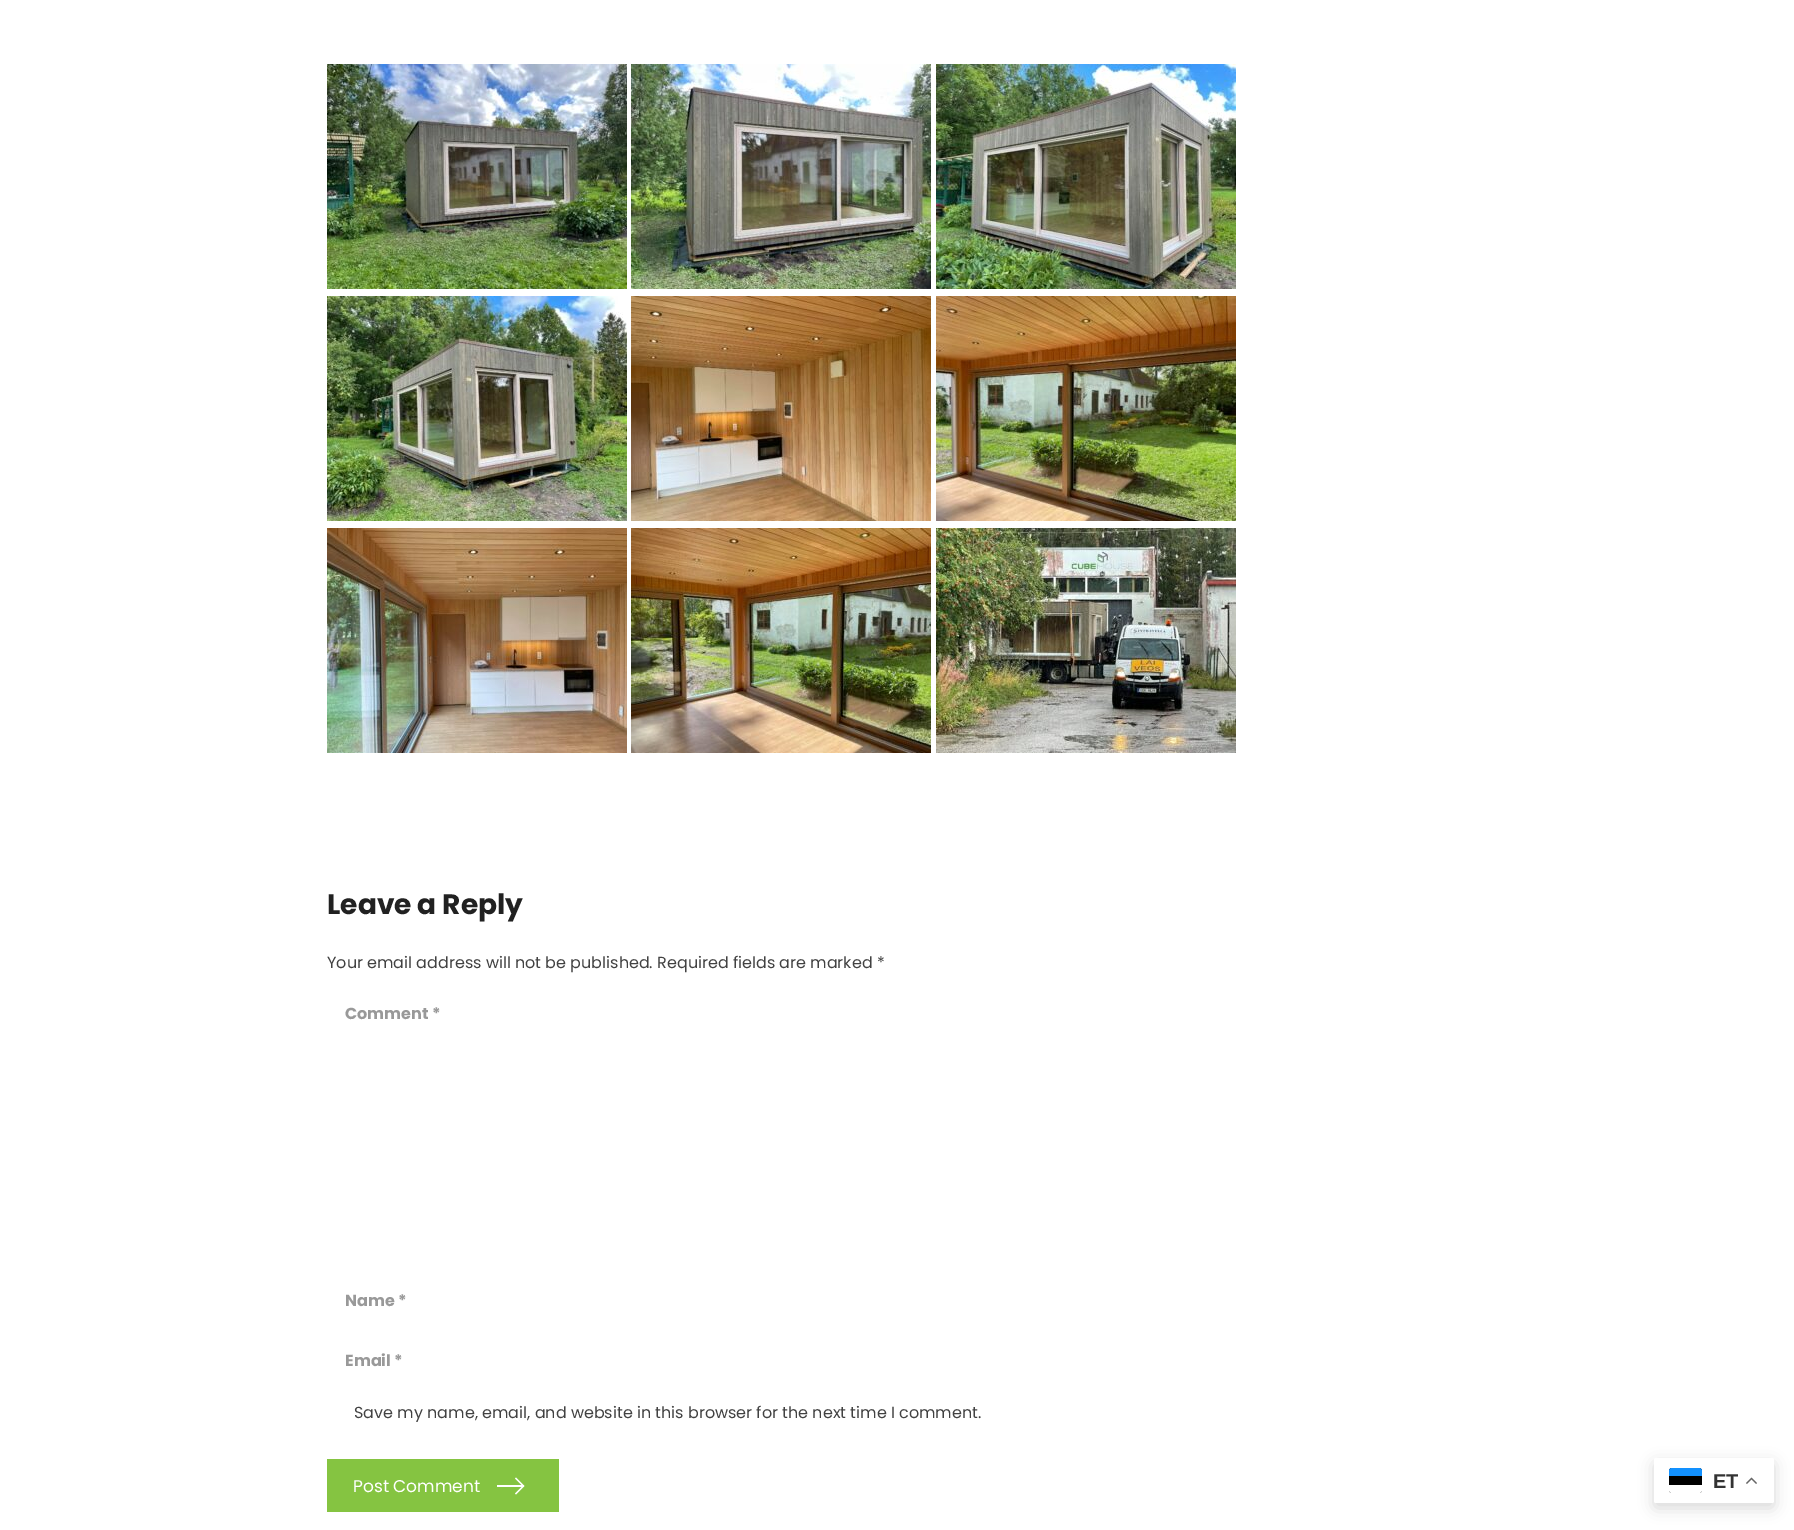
%!PS-Adobe-3.0
%%BoundingBox: 0 0 1794 1530
%%LanguageLevel: 3
%%Pages: 1
%%EndComments
%%BeginProlog
/setink { dup -16 bitshift 255 div exch dup -8 bitshift 255 and 255 div exch 255 and 255 div setrgbcolor } def
/usefont { [ exch dup neg 0 0 3 -1 roll 0 0 ] selectfont } def
/setalpha { dup .setfillconstantalpha .setstrokeconstantalpha } def
/rrect { 5 dict begin { /r /h /w /y /x } { exch def } forall
  x r add y moveto x w add y 2 copy h add r arct x w add y h add x 1 index r arct
  x y h add x y r arct x y 2 copy exch w add exch r arct closepath end } def
/softshadow { 12 dict begin { /a /b /q /h /w /y /x } { exch def } forall gsave /was 0 def
  9 -2 -9 { dup b mul 4 div /e exch def 1 sub .425 mul 2.718 exch exp 1 add a .99 .min exch div /now exch def
    1 1 now sub 1 was sub div sub setalpha /was now def
    w h .min e 2 mul add 0 gt { x e sub y e sub w e 2 mul add h e 2 mul add
      q e add b .6 mul add w h .min 2 div e add .min 0 .max rrect fill } if } for grestore end } def
/drawimage { 5 dict begin { /h /w /y /x /name } { exch def } forall
  gsave x y translate w h scale
  w h 8 [w 0 0 h 0 0] name (r) file false 3 colorimage grestore end } def
%%EndProlog
%%BeginSetup
<< /PageSize [1794 1530] /PageUsesTransparency true >> setpagedevice
%%EndSetup
%%Page: 1 1
0 .pushpdf14devicefilter
0 1530 translate 1 -1 scale
4 setmiterlimit
16#FFFFFF setink
0 0 1794 1530 rectfill
(img1.raw) 327 64 300 225 drawimage
(img2.raw) 631 64 300 225 drawimage
(img3.raw) 936 64 300 225 drawimage
(img4.raw) 327 296 300 225 drawimage
(img5.raw) 631 296 300 225 drawimage
(img6.raw) 936 296 300 225 drawimage
(img7.raw) 327 528 300 225 drawimage
(img8.raw) 631 528 300 225 drawimage
(img9.raw) 936 528 300 225 drawimage
/Poppins-Bold 28 usefont
16#212121 setink
327 914 moveto (Leave a Reply) show
/Poppins-Regular 16 usefont
16#424242 setink
327 968 moveto (Your email address will not be published. Required fields are marked *) show
/Poppins-Bold 16 usefont
16#999999 setink
[
    [(Comment *) 345 1019]
    [(Name *) 345 1306]
    [(Email *) 345 1366]
] { aload pop moveto show } forall
/Poppins-Regular 16 usefont
16#424242 setink
354 1418 moveto (Save my name, email, and website in this browser for the next time I comment.) show
16#85C441 setink
327 1459 232 53 rectfill
16#FFFFFF setink
497 1485 27 2 rectfill
523.5 1485 moveto 524.5 1486 lineto 516 1494.5 lineto 515 1493.5 lineto 522.5 1486 lineto 515 1478.5 lineto 516 1477.5 lineto closepath eofill
/Poppins-Regular 17 usefont
353 1492 moveto (Post Comment) show
16#000000 setink
1654 1463 120 45 2 7.5 0.15 softshadow
16#FFFFFF setink
1654 1458 120 45 2 rrect fill
16#000000 setink
1669 1468 33 25 3 rrect fill
16#FFFFFF setink
1669 1485 moveto 1702 1485 lineto 1702 1490 lineto 1702 1491.5 1700.5 1493 1699 1493 curveto 1672 1493 lineto 1670.5 1493 1669 1491.5 1669 1490 curveto closepath fill
16#1291FF setink
1672 1468 moveto 1699 1468 lineto 1700.5 1468 1702 1469.5 1702 1471 curveto 1702 1476 lineto 1669 1476 lineto 1669 1471 lineto 1669 1469.5 1670.5 1468 1672 1468 curveto closepath fill
/LiberationSans-Bold 20 usefont
16#333333 setink
1713 1488 moveto (ET) show
(img10.raw) 1746 1477 11 7 drawimage
.poppdf14devicefilter showpage
%%EOF
